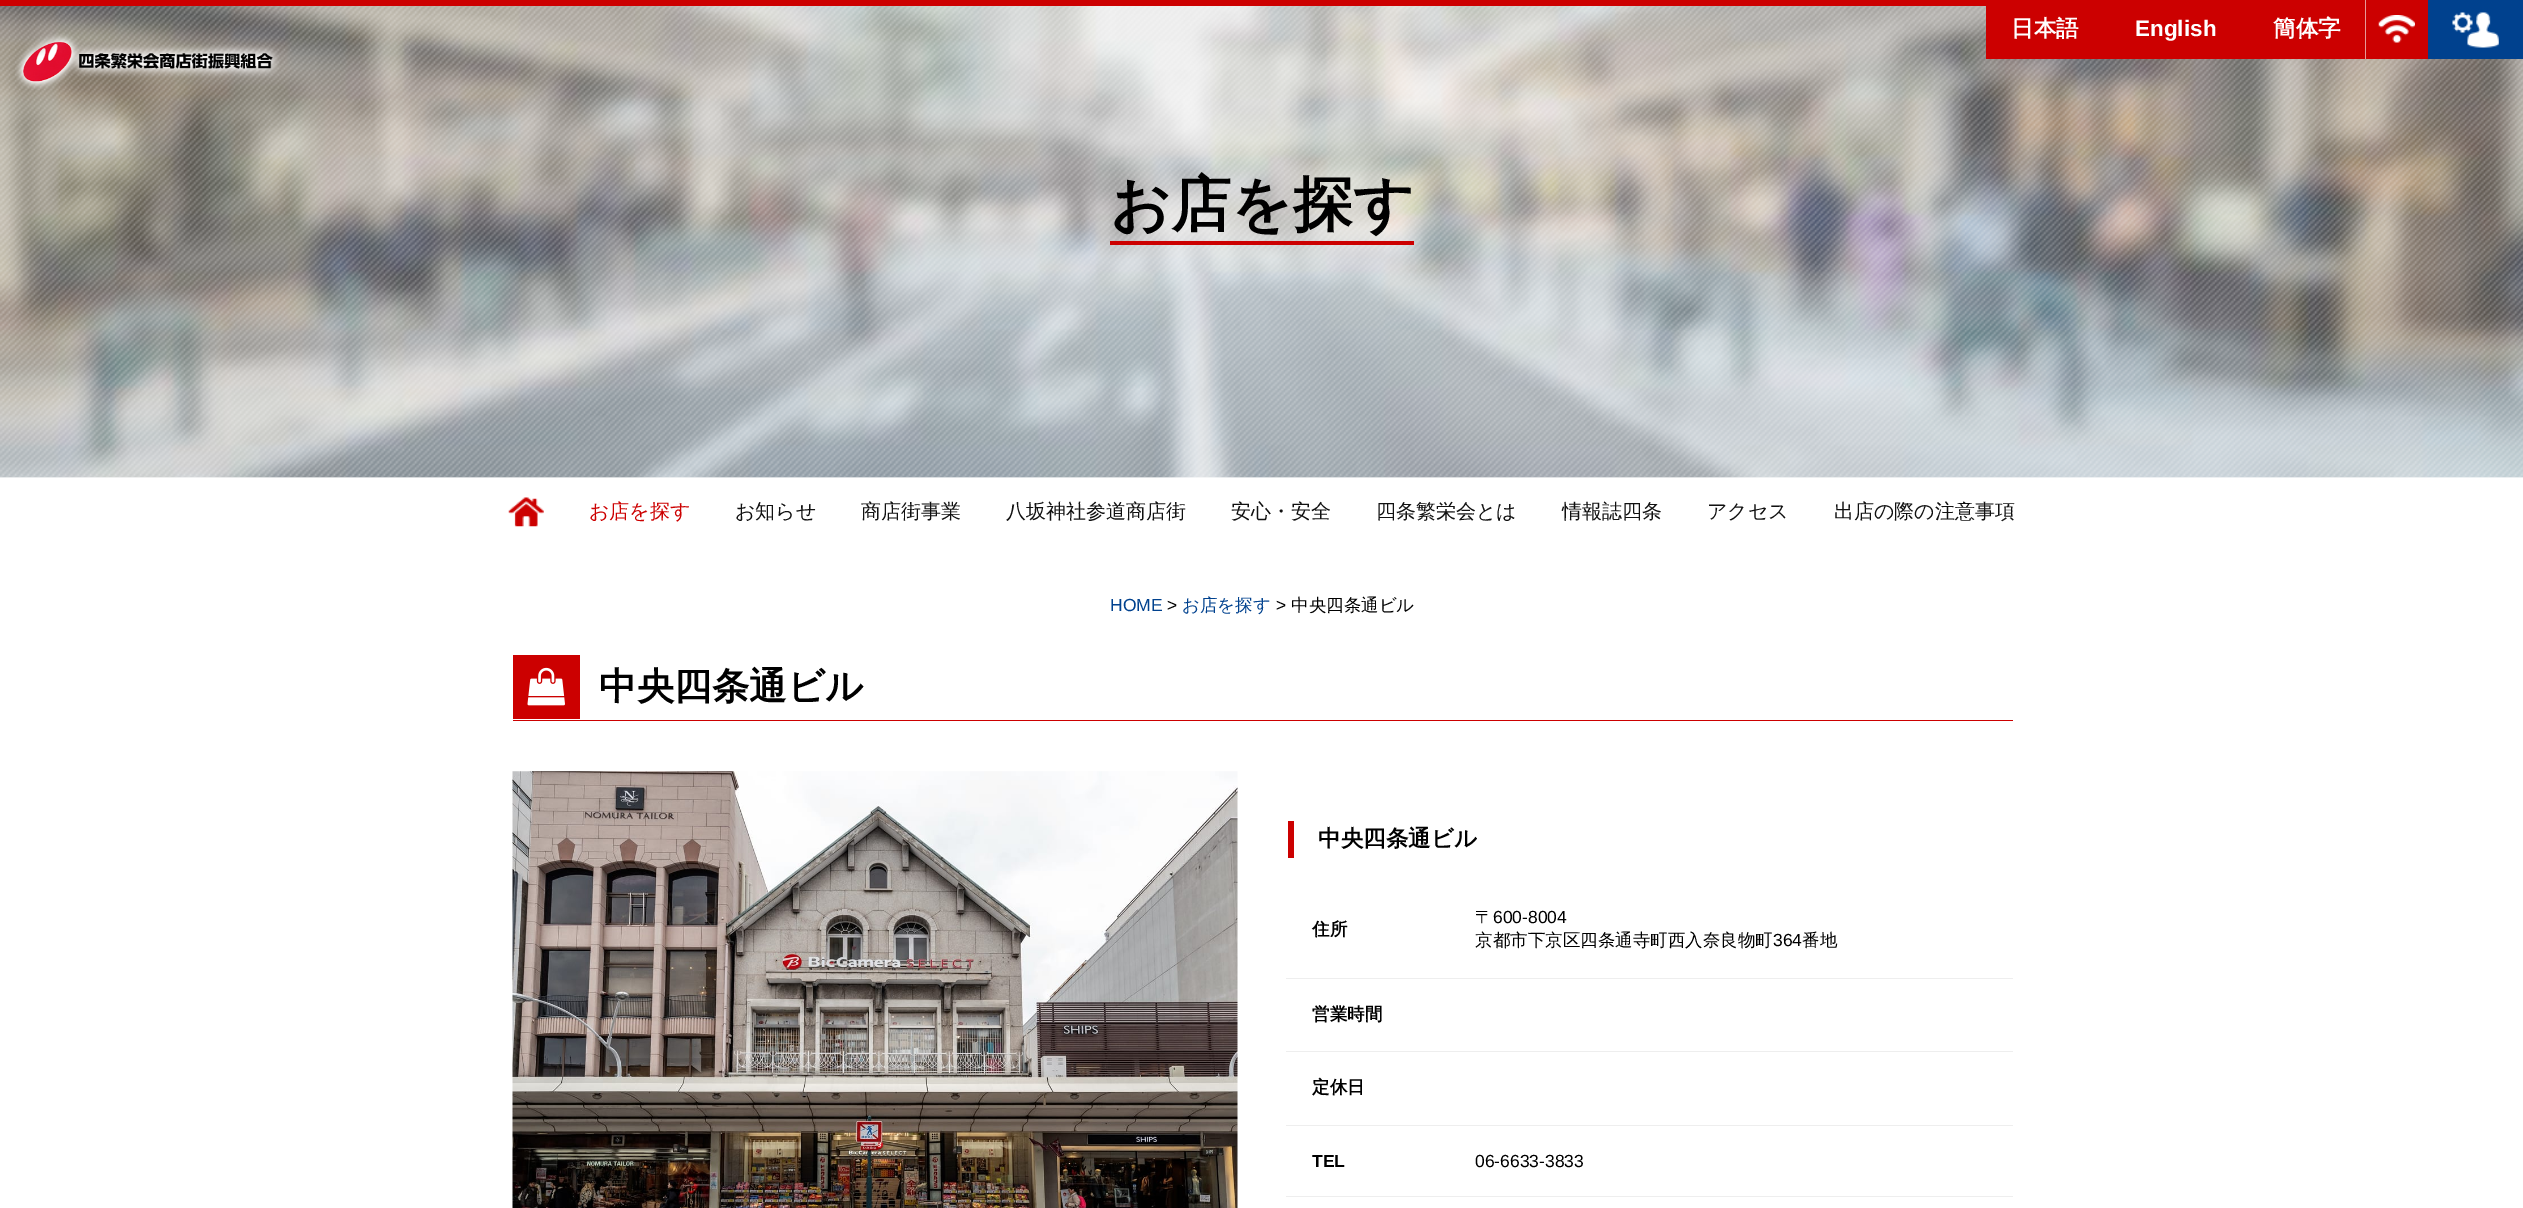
%!PS-Adobe-3.0
%%BoundingBox: 0 0 2523 1208
%%LanguageLevel: 3
%%Pages: 1
%%EndComments
%%BeginProlog
/setink { dup -16 bitshift 255 div exch dup -8 bitshift 255 and 255 div exch 255 and 255 div setrgbcolor } def
/usefont { [ exch dup neg 0 0 3 -1 roll 0 0 ] selectfont } def
/setalpha { dup .setfillconstantalpha .setstrokeconstantalpha } def
/drawimage { 5 dict begin { /h /w /y /x /name } { exch def } forall
  gsave x y translate w h scale
  w h 8 [w 0 0 h 0 0] name (r) file false 3 colorimage grestore end } def
%%EndProlog
%%BeginSetup
<< /PageSize [2523 1208] /PageUsesTransparency true >> setpagedevice
%%EndSetup
%%Page: 1 1
0 .pushpdf14devicefilter
0 1208 translate 1 -1 scale
4 setmiterlimit
16#FFFFFF setink
0 0 2523 1208 rectfill
16#CC0000 setink
0 0 1986 6 rectfill
(img4.raw) 0 6 2523 472 drawimage
(img5.raw) 0 6 2523 472 drawimage
1986 0 442 59 rectfill
16#E69999 setink
2365 0 1 59 rectfill
/WenQuanYiZenHei-Bold 22.5 usefont
16#FFFFFF setink
2011 36 moveto (日本語) show
/LiberationSans-Bold 22.5 usefont
2135 36 moveto (English) show
/WenQuanYiZenHei-Bold 22.5 usefont
2273 36 moveto (簡体字) show
(img1.raw) 2378 15 37 28 drawimage
16#00418E setink
2428 0 95 59 rectfill
(img2.raw) 2452 12 47 36 drawimage
(img3.raw) 15 33 265 57 drawimage
16#CC0000 setink
1110 241 304 4 rectfill
/WenQuanYiZenHei-Bold 60 usefont
16#000000 setink
1110 225 moveto (お店を探す) show
0.4 setalpha
16#FFFFFF setink
0 477 2523 1 rectfill
1 setalpha
(img6.raw) 508 497 36 30 drawimage
/WenQuanYiZenHei-Medium 20 usefont
16#CC0000 setink
589 518 moveto (お店を探す) show
16#111111 setink
[
    [(お知らせ) 735 518]
    [(商店街事業) 861 518]
    [(八坂神社参道商店街) 1006 518]
    [(安心・安全) 1231 518]
    [(四条繁栄会とは) 1376 518]
    [(情報誌四条) 1562 518]
    [(アクセス) 1707 518]
    [(出店の際の注意事項) 1834 518]
] { aload pop moveto show } forall
/LiberationSans-Regular 17.5 usefont
16#00418E setink
1110 611 moveto (HOME) show
16#000000 setink
1167 611 moveto (>) show
/WenQuanYiZenHei-Medium 17.5 usefont
16#00418E setink
1182 611 moveto (お店を探す) show
/LiberationSans-Regular 17.5 usefont
16#000000 setink
1276 611 moveto (>) show
/WenQuanYiZenHei-Medium 17.5 usefont
1291 611 moveto (中央四条通ビル) show
16#CC0000 setink
513 720 1500 1 rectfill
513 655 67 64 rectfill
(img7.raw) 527 667 38 39 drawimage
/WenQuanYiZenHei-Bold 37.5 usefont
16#000000 setink
599 699 moveto (中央四条通ビル) show
(img8.raw) 512 771 726 437 drawimage
16#CC0000 setink
1288 821 6 37 rectfill
/WenQuanYiZenHei-Bold 22.5 usefont
16#000000 setink
1318 846 moveto (中央四条通ビル) show
/WenQuanYiZenHei-Bold 17.5 usefont
1312 935 moveto (住所) show
16#EEEEEE setink
1286 978 727 1 rectfill
/WenQuanYiZenHei-Medium 17.5 usefont
16#000000 setink
1475 923 moveto (〒) show
/LiberationSans-Regular 17.5 usefont
1493 923 moveto (600-8004) show
/WenQuanYiZenHei-Medium 17.5 usefont
1475 946 moveto (京都市下京区四条通寺町西入奈良物町) show
/LiberationSans-Regular 17.5 usefont
1773 946 moveto (364) show
/WenQuanYiZenHei-Medium 17.5 usefont
1802 946 moveto (番地) show
/WenQuanYiZenHei-Bold 17.5 usefont
1312 1020 moveto (営業時間) show
16#EEEEEE setink
1286 1051 727 1 rectfill
16#000000 setink
1312 1093 moveto (定休日) show
16#EEEEEE setink
1286 1125 727 1 rectfill
/LiberationSans-Bold 17.5 usefont
16#000000 setink
1312 1167 moveto (TEL) show
16#EEEEEE setink
1286 1196 727 1 rectfill
/LiberationSans-Regular 17.5 usefont
16#000000 setink
1475 1167 moveto (06-6633-3833) show
.poppdf14devicefilter showpage
%%EOF
